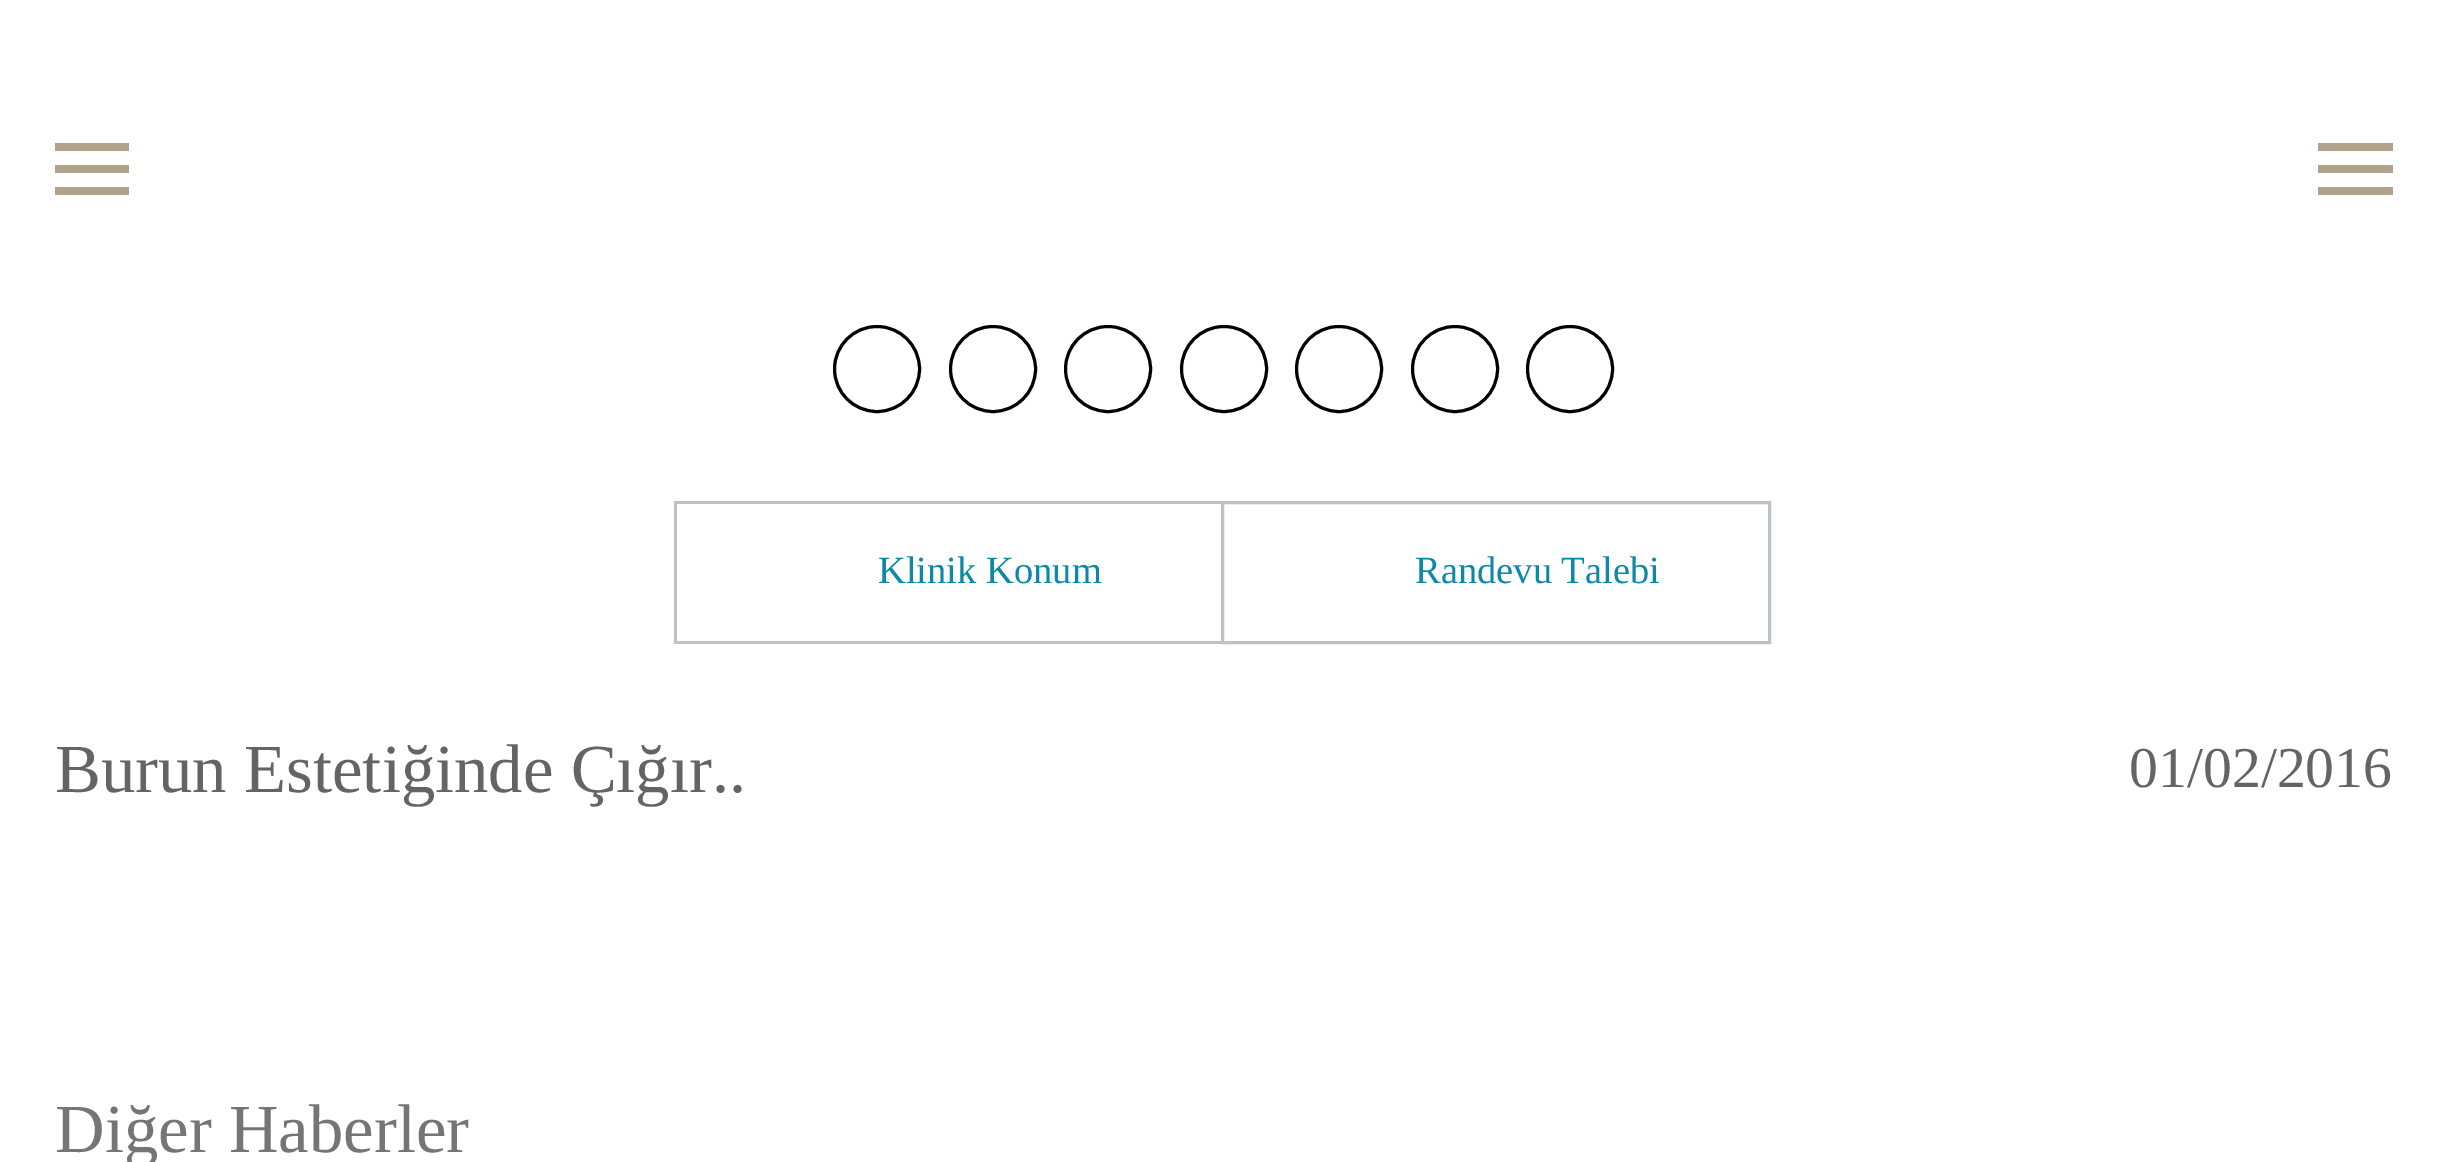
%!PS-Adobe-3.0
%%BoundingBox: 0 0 2447 1162
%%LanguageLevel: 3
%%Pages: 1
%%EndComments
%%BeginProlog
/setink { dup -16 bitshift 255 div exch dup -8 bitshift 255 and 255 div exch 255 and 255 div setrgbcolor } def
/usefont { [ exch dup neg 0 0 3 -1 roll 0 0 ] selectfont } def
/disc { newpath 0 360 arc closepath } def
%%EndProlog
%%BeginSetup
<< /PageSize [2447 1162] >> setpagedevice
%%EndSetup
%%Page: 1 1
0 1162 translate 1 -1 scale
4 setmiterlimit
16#FFFFFF setink
0 0 2447 1162 rectfill
[
    [55 165 74 8 16#B1A38A]
    [55 143 74 8 16#B1A38A]
    [55 187 74 8 16#B1A38A]
    [2318 165 75 8 16#B1A38A]
    [2318 143 75 8 16#B1A38A]
    [2318 187 75 8 16#B1A38A]
] { aload pop setink rectfill } forall
16#000000 setink
3 setlinewidth
877 369 42.5 disc stroke
993 369 42.5 disc stroke
1108 369 42.5 disc stroke
1224 369 42.5 disc stroke
1339 369 42.5 disc stroke
1455 369 42.5 disc stroke
1570 369 42.5 disc stroke
[
    [674 501 547 3 16#BEC2C4]
    [674 641 547 3 16#BEC2C4]
    [674 501 3 143 16#BEC2C4]
] { aload pop setink rectfill } forall
/LiberationSerif-Regular 38.5 usefont
16#0D89A8 setink
878 583 moveto (Klinik Konum) show
16#BEC2C4 setink
1222.5 502.5 547 140 rectstroke
16#0D89A8 setink
1415 583 moveto (Randevu Talebi) show
/LiberationSerif-Regular 68.75 usefont
16#646464 setink
55 792 moveto (Burun Estetiğinde Çığır..) show
/LiberationSerif-Regular 57.75 usefont
2129 787 moveto (01/02/2016) show
/LiberationSerif-Regular 68.75 usefont
16#757575 setink
55 1152 moveto (Diğer Haberler) show
showpage
%%EOF
